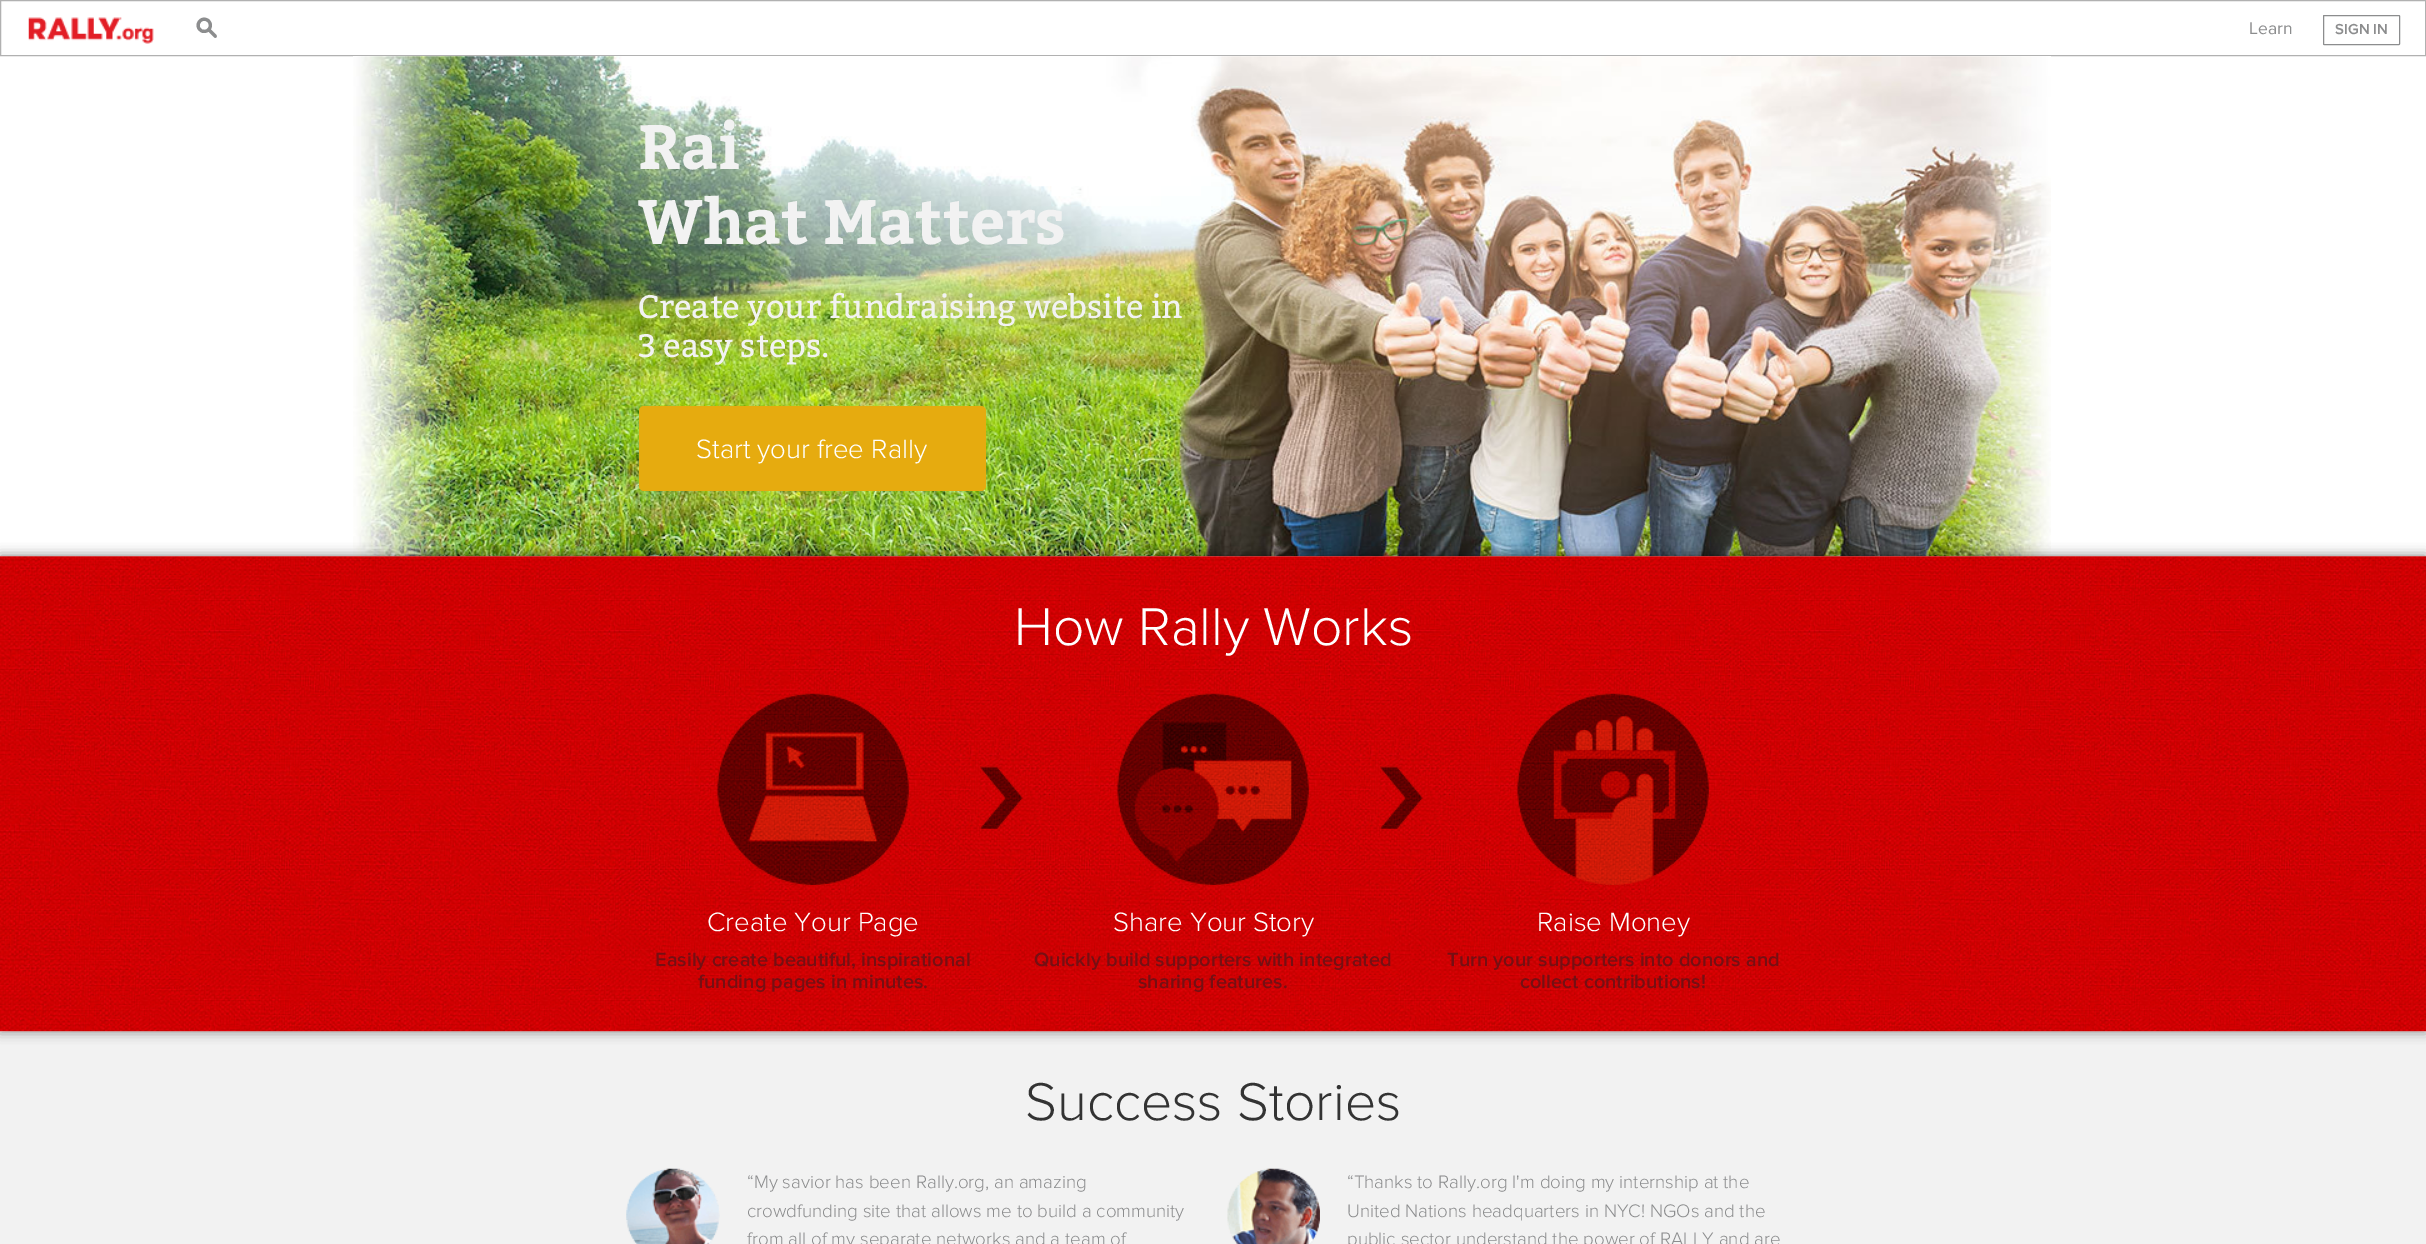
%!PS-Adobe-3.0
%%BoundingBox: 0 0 2426 1244
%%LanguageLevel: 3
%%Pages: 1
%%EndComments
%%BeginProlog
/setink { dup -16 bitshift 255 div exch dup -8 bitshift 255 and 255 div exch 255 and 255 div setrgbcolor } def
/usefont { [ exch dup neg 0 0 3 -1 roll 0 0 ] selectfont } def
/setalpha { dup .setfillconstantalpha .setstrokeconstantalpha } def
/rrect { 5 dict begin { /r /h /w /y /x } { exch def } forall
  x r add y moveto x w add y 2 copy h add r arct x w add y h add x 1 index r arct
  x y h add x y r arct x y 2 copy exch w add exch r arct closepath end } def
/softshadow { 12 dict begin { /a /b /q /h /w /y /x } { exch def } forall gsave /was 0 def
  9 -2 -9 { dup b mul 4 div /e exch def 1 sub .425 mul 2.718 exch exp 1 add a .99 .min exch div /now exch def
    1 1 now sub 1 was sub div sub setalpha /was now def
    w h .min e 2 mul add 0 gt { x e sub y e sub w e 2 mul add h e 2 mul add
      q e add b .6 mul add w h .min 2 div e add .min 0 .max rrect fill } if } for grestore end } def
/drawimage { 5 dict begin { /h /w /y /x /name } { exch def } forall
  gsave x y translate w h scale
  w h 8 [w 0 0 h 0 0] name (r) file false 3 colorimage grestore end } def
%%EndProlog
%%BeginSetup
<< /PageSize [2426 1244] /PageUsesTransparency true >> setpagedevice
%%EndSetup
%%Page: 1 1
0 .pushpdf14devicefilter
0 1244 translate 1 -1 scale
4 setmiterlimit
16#FFFFFF setink
0 0 2426 1244 rectfill
16#B1B1B1 setink
0.5 0.5 2425 55 rectstroke
(img1.raw) 28 17 126 27 drawimage
/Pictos-Regular 25 usefont
16#8C8D8E setink
196 35 moveto (s) show
/ProximaNova-Regular 17.5 usefont
2249 34 moveto (Learn) show
2323.5 15.5 76 29 0.5 rrect stroke
/ProximaNova-SemiBold 15 usefont
2335 34 moveto (SIGN IN) show
(img2.raw) 353 56 1698 501 drawimage
/Bitter-Bold 62.5 usefont
16#F2F2F2 setink
638 169 moveto (Rai) show
638 244 moveto (What Matters) show
/Bitter-Regular 32.5 usefont
638 318 moveto (Create your fundraising website in) show
638 357 moveto (3 easy steps.) show
16#E6AB0F setink
639 406 347 85 5 rrect fill
/ProximaNova-Light 27.5 usefont
16#FFFFFF setink
696 458 moveto (Start your free Rally) show
16#F2F2F2 setink
0 1031 2426 213 rectfill
16#000000 setink
0 556 2426 475 0 6 0.5 softshadow
(img3.raw) 0 556 2426 476 drawimage
/ProximaNova-Light 55 usefont
16#FFFFFF setink
1014 645 moveto (How Rally Works) show
(img4.raw) 717 693 192 192 drawimage
(img5.raw) 980 766 43 63 drawimage
/ProximaNova-Light 27.5 usefont
707 931 moveto (Create Your Page) show
/ProximaNova-SemiBold 20 usefont
16#750F13 setink
655 966 moveto (Easily create beautiful, inspirational) show
698 988 moveto (funding pages in minutes.) show
(img6.raw) 1117 693 192 192 drawimage
(img7.raw) 1380 766 43 63 drawimage
/ProximaNova-Light 27.5 usefont
16#FFFFFF setink
1113 931 moveto (Share Your Story) show
/ProximaNova-SemiBold 20 usefont
16#750F13 setink
1034 966 moveto (Quickly build supporters with integrated) show
1138 988 moveto (sharing features.) show
(img8.raw) 1517 693 192 192 drawimage
/ProximaNova-Light 27.5 usefont
16#FFFFFF setink
1537 931 moveto (Raise Money) show
/ProximaNova-SemiBold 20 usefont
16#750F13 setink
1447 966 moveto (Turn your supporters into donors and) show
1520 988 moveto (collect contributions!) show
/ProximaNova-Light 55 usefont
16#333333 setink
1025 1120 moveto (Success Stories) show
(img9.raw) 626 1168 94 76 drawimage
/ProximaNova-Light 18.75 usefont
16#8C8D8E setink
[
    [(“My savior has been Rally.org, an amazing) 747 1188]
    [(crowdfunding site that allows me to build a community) 747 1217]
    [(from all of my separate networks and a team of) 747 1245]
] { aload pop moveto show } forall
(img10.raw) 1227 1168 93 76 drawimage
[
    [(“Thanks to Rally.org I'm doing my internship at the) 1347 1188]
    [(United Nations headquarters in NYC! NGOs and the) 1347 1217]
    [(public sector understand the power of RALLY and are) 1347 1245]
] { aload pop moveto show } forall
.poppdf14devicefilter showpage
%%EOF
